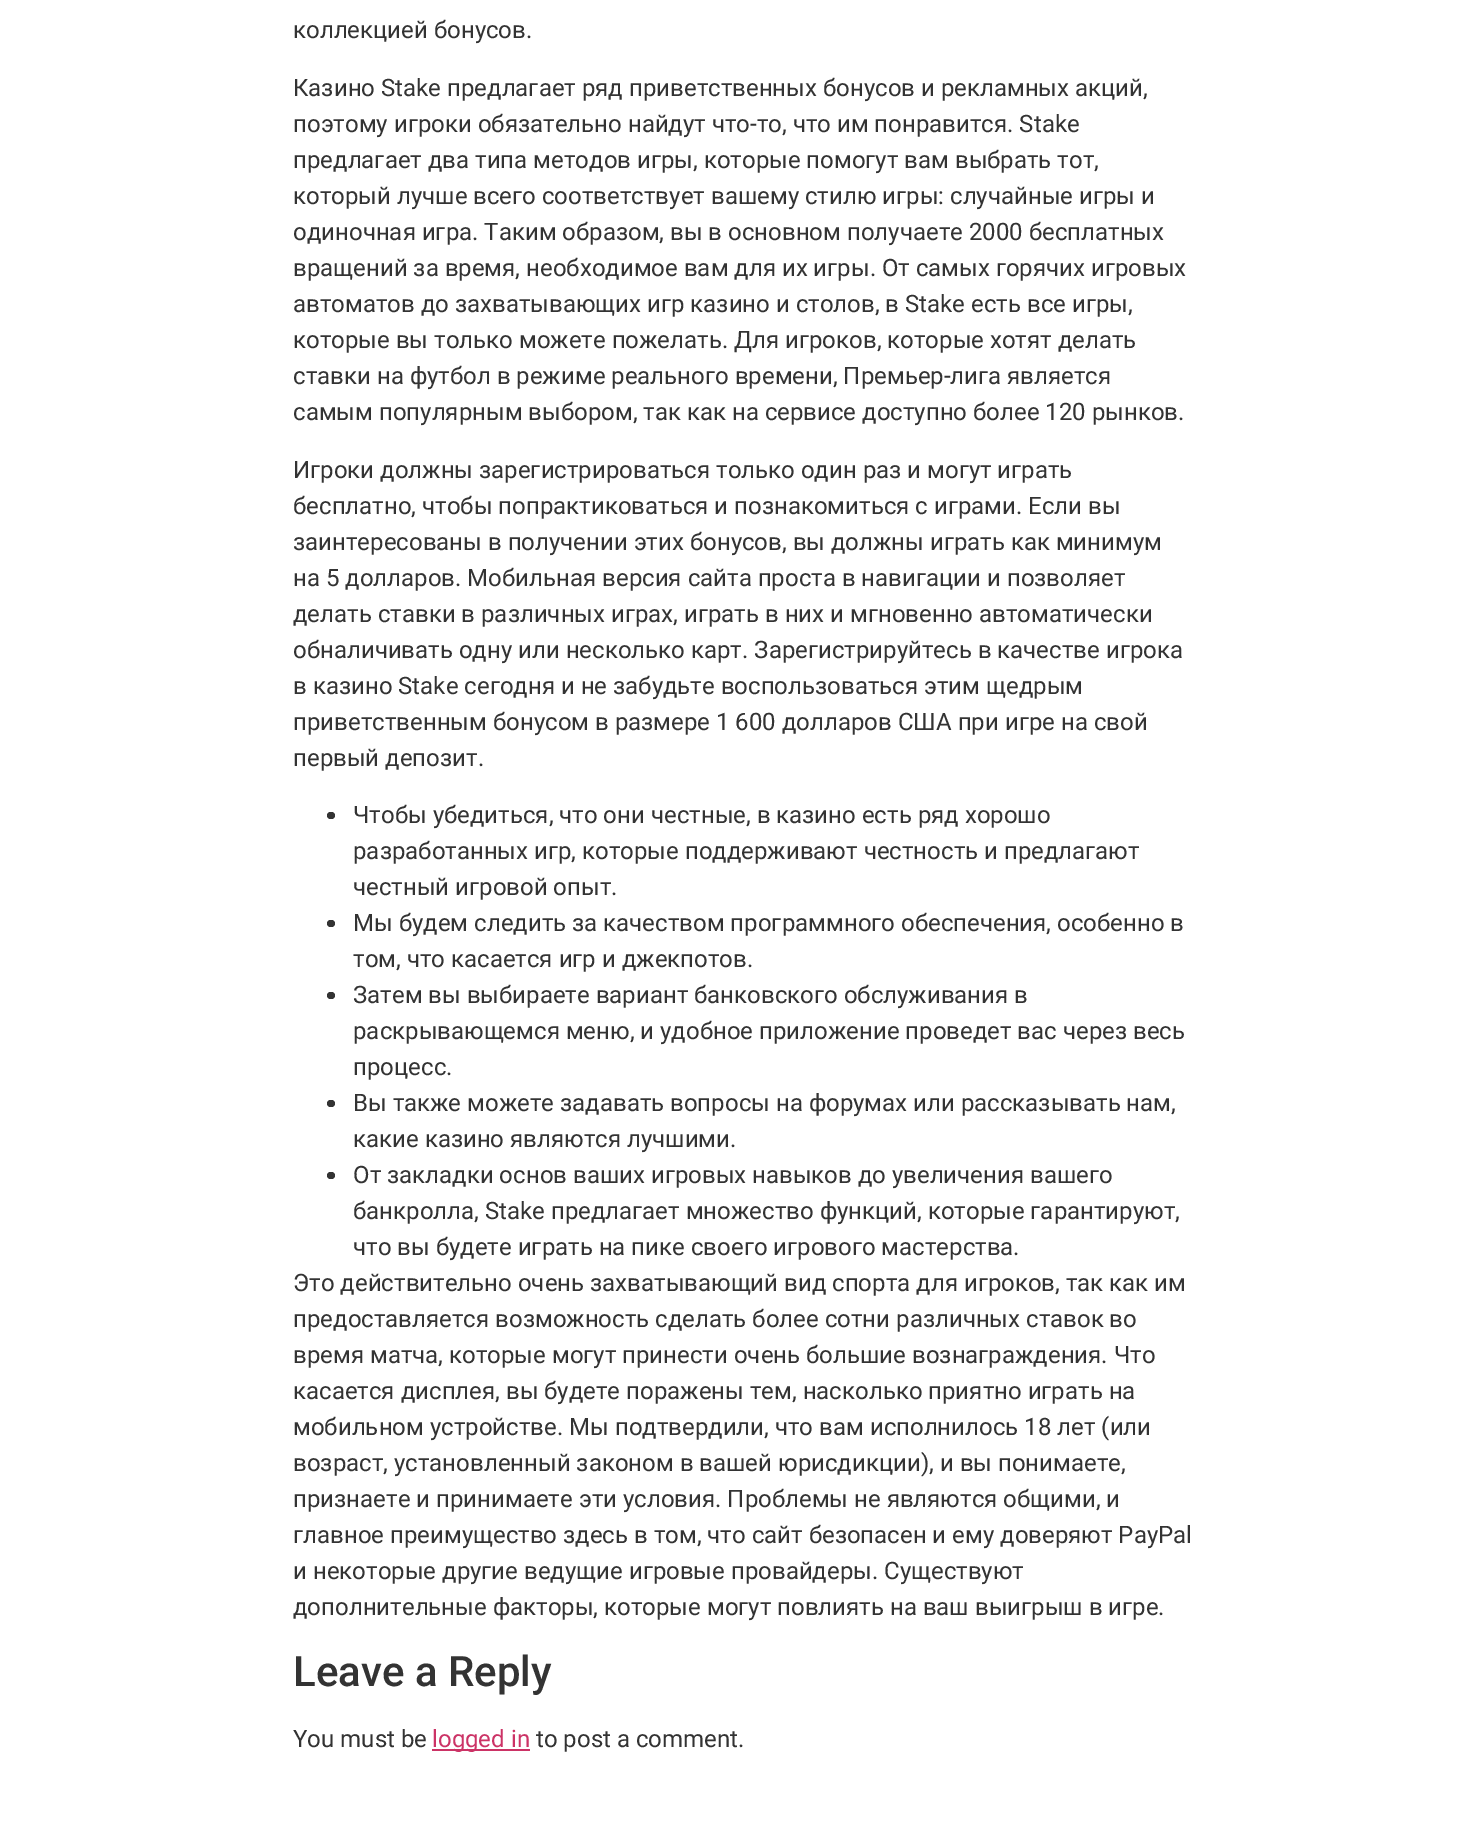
%!PS-Adobe-3.0
%%BoundingBox: 0 0 1484 1826
%%LanguageLevel: 3
%%Pages: 1
%%EndComments
%%BeginProlog
/setink { dup -16 bitshift 255 div exch dup -8 bitshift 255 and 255 div exch 255 and 255 div setrgbcolor } def
/usefont { [ exch dup neg 0 0 3 -1 roll 0 0 ] selectfont } def
/rrect { 5 dict begin { /r /h /w /y /x } { exch def } forall
  x r add y moveto x w add y 2 copy h add r arct x w add y h add x 1 index r arct
  x y h add x y r arct x y 2 copy exch w add exch r arct closepath end } def
%%EndProlog
%%BeginSetup
<< /PageSize [1484 1826] >> setpagedevice
%%EndSetup
%%Page: 1 1
0 1826 translate 1 -1 scale
4 setmiterlimit
16#FFFFFF setink
0 0 1484 1826 rectfill
/Roboto-Regular 24 usefont
16#333333 setink
[
    [(коллекцией бонусов.) 293 38]
    [(Казино Stake предлагает ряд приветственных бонусов и рекламных акций,) 293 96]
    [(поэтому игроки обязательно найдут что-то, что им понравится. Stake) 293 132]
    [(предлагает два типа методов игры, которые помогут вам выбрать тот,) 293 168]
    [(который лучше всего соответствует вашему стилю игры: случайные игры и) 293 204]
    [(одиночная игра. Таким образом, вы в основном получаете 2000 бесплатных) 293 240]
    [(вращений за время, необходимое вам для их игры. От самых горячих игровых) 293 276]
    [(автоматов до захватывающих игр казино и столов, в Stake есть все игры,) 293 312]
    [(которые вы только можете пожелать. Для игроков, которые хотят делать) 293 348]
    [(ставки на футбол в режиме реального времени, Премьер-лига является) 293 384]
    [(самым популярным выбором, так как на сервисе доступно более 120 рынков.) 293 420]
    [(Игроки должны зарегистрироваться только один раз и могут играть) 293 478]
    [(бесплатно, чтобы попрактиковаться и познакомиться с играми. Если вы) 293 514]
    [(заинтересованы в получении этих бонусов, вы должны играть как минимум) 293 550]
    [(на 5 долларов. Мобильная версия сайта проста в навигации и позволяет) 293 586]
    [(делать ставки в различных играх, играть в них и мгновенно автоматически) 293 622]
    [(обналичивать одну или несколько карт. Зарегистрируйтесь в качестве игрока) 293 658]
    [(в казино Stake сегодня и не забудьте воспользоваться этим щедрым) 293 694]
    [(приветственным бонусом в размере 1 600 долларов США при игре на свой) 293 730]
    [(первый депозит.) 293 766]
] { aload pop moveto show } forall
327 812 8 7 3.5 rrect fill
[
    [(Чтобы убедиться, что они честные, в казино есть ряд хорошо) 353 823]
    [(разработанных игр, которые поддерживают честность и предлагают) 353 859]
    [(честный игровой опыт.) 353 895]
] { aload pop moveto show } forall
327 920 8 7 3.5 rrect fill
353 931 moveto (Мы будем следить за качеством программного обеспечения, особенно в) show
353 967 moveto (том, что касается игр и джекпотов.) show
327 992 8 7 3.5 rrect fill
[
    [(Затем вы выбираете вариант банковского обслуживания в) 353 1003]
    [(раскрывающемся меню, и удобное приложение проведет вас через весь) 353 1039]
    [(процесс.) 353 1075]
] { aload pop moveto show } forall
327 1100 8 7 3.5 rrect fill
353 1111 moveto (Вы также можете задавать вопросы на форумах или рассказывать нам,) show
353 1147 moveto (какие казино являются лучшими.) show
327 1172 8 7 3.5 rrect fill
[
    [(От закладки основ ваших игровых навыков до увеличения вашего) 353 1183]
    [(банкролла, Stake предлагает множество функций, которые гарантируют,) 353 1219]
    [(что вы будете играть на пике своего игрового мастерства.) 353 1255]
    [(Это действительно очень захватывающий вид спорта для игроков, так как им) 293 1291]
    [(предоставляется возможность сделать более сотни различных ставок во) 293 1327]
    [(время матча, которые могут принести очень большие вознаграждения. Что) 293 1363]
    [(касается дисплея, вы будете поражены тем, насколько приятно играть на) 293 1399]
    [(мобильном устройстве. Мы подтвердили, что вам исполнилось 18 лет \(или) 293 1435]
    [(возраст, установленный законом в вашей юрисдикции\), и вы понимаете,) 293 1471]
    [(признаете и принимаете эти условия. Проблемы не являются общими, и) 293 1507]
    [(главное преимущество здесь в том, что сайт безопасен и ему доверяют PayPal) 293 1543]
    [(и некоторые другие ведущие игровые провайдеры. Существуют) 293 1579]
    [(дополнительные факторы, которые могут повлиять на ваш выигрыш в игре.) 293 1615]
] { aload pop moveto show } forall
/Roboto-Medium 42 usefont
293 1686 moveto (Leave a Reply) show
/Roboto-Regular 24 usefont
293 1747 moveto (You must be) show
16#CC3366 setink
432 1749 98 2 rectfill
432 1747 moveto (logged in) show
16#333333 setink
536 1747 moveto (to post a comment.) show
showpage
%%EOF
